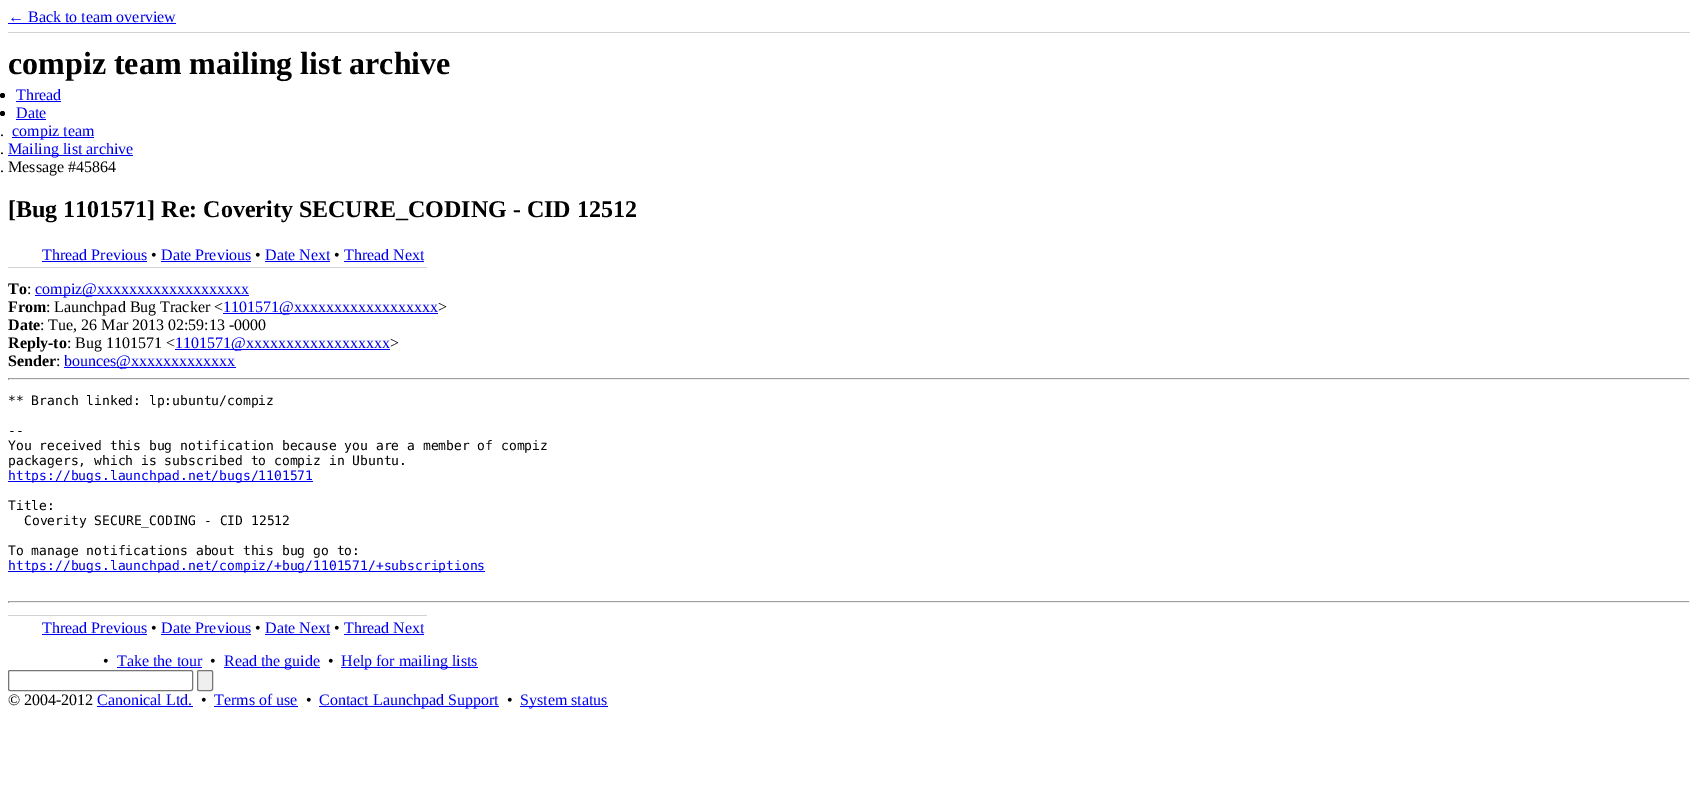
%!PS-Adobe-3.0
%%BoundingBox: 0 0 1698 798
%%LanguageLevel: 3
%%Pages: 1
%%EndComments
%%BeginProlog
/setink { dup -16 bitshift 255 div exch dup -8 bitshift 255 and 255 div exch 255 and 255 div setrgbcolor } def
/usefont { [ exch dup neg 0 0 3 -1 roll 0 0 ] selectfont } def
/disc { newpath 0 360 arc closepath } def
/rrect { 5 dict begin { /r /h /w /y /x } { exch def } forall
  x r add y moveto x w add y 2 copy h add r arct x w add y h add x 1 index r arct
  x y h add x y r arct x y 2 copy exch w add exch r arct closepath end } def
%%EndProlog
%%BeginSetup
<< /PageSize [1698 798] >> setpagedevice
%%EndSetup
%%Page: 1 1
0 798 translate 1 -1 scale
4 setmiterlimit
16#FFFFFF setink
0 0 1698 798 rectfill
16#D2D2D2 setink
8 32 1682 1 rectfill
/LiberationSerif-Regular 16 usefont
16#0000EE setink
8 22 moveto (← Back to team overview) show
8 23 168 1 rectfill
/LiberationSerif-Bold 32 usefont
16#000000 setink
8 74 moveto (compiz team mailing list archive) show
2.5 95.5 2.5 disc fill
/LiberationSerif-Regular 16 usefont
16#0000EE setink
16 100 moveto (Thread) show
16 101 45 1 rectfill
16#000000 setink
2.5 113.5 2.5 disc fill
16#0000EE setink
16 118 moveto (Date) show
16 119 30 1 rectfill
16#000000 setink
0 136 moveto (.) show
16#0000EE setink
12 137 82 1 rectfill
12 136 moveto (compiz team) show
16#000000 setink
0 154 moveto (.) show
16#0000EE setink
8 155 125 1 rectfill
8 154 moveto (Mailing list archive) show
16#000000 setink
0 172 moveto (. Message #45864) show
/LiberationSerif-Bold 24 usefont
8 217 moveto ([Bug 1101571] Re: Coverity SECURE_CODING - CID 12512) show
16#D2D2D2 setink
8 267 419 1 rectfill
/LiberationSerif-Regular 16 usefont
16#0000EE setink
42 260 moveto (Thread Previous) show
42 261 105 1 rectfill
16#000000 setink
151 260 moveto (•) show
16#0000EE setink
161 260 moveto (Date Previous) show
161 261 90 1 rectfill
16#000000 setink
255 260 moveto (•) show
16#0000EE setink
265 260 moveto (Date Next) show
265 261 65 1 rectfill
16#000000 setink
334 260 moveto (•) show
16#0000EE setink
344 260 moveto (Thread Next) show
344 261 80 1 rectfill
/LiberationSerif-Bold 16 usefont
16#000000 setink
8 294 moveto (To) show
/LiberationSerif-Regular 16 usefont
27 294 moveto (:) show
16#0000EE setink
35 295 214 1 rectfill
35 294 moveto (compiz@xxxxxxxxxxxxxxxxxxx) show
/LiberationSerif-Bold 16 usefont
16#000000 setink
8 312 moveto (From) show
/LiberationSerif-Regular 16 usefont
46 312 moveto (: Launchpad Bug Tracker <) show
16#0000EE setink
223 313 215 1 rectfill
223 312 moveto (1101571@xxxxxxxxxxxxxxxxxx) show
16#000000 setink
438 312 moveto (>) show
/LiberationSerif-Bold 16 usefont
8 330 moveto (Date) show
/LiberationSerif-Regular 16 usefont
40 330 moveto (: Tue, 26 Mar 2013 02:59:13 -0000) show
/LiberationSerif-Bold 16 usefont
8 348 moveto (Reply-to) show
/LiberationSerif-Regular 16 usefont
67 348 moveto (: Bug 1101571 <) show
16#0000EE setink
175 349 215 1 rectfill
175 348 moveto (1101571@xxxxxxxxxxxxxxxxxx) show
16#000000 setink
390 348 moveto (>) show
/LiberationSerif-Bold 16 usefont
8 366 moveto (Sender) show
/LiberationSerif-Regular 16 usefont
56 366 moveto (:) show
16#0000EE setink
64 367 172 1 rectfill
64 366 moveto (bounces@xxxxxxxxxxxxx) show
[
    [8 378 1682 1 16#9F9F9F]
    [1689 378 1 2 16#EEEEEE]
    [8 379 1682 1 16#EEEEEE]
    [8 378 1 2 16#9F9F9F]
] { aload pop setink rectfill } forall
/DejaVuSansMono-Regular 13 usefont
16#000000 setink
[
    [(** Branch linked: lp:ubuntu/compiz) 8 405]
    [(--) 8 435]
    [(You received this bug notification because you are a member of compiz) 8 450]
    [(packagers, which is subscribed to compiz in Ubuntu.) 8 465]
] { aload pop moveto show } forall
16#0000EE setink
8 481 305 1 rectfill
8 480 moveto (https://bugs.launchpad.net/bugs/1101571) show
16#000000 setink
[
    [(Title:) 8 510]
    [(Coverity SECURE_CODING - CID 12512) 24 525]
    [(To manage notifications about this bug go to:) 8 555]
] { aload pop moveto show } forall
16#0000EE setink
8 571 477 1 rectfill
8 570 moveto (https://bugs.launchpad.net/compiz/+bug/1101571/+subscriptions) show
[
    [8 601 1682 1 16#9F9F9F]
    [1689 601 1 2 16#EEEEEE]
    [8 602 1682 1 16#EEEEEE]
    [8 601 1 2 16#9F9F9F]
    [8 615 419 1 16#D2D2D2]
] { aload pop setink rectfill } forall
/LiberationSerif-Regular 16 usefont
16#0000EE setink
42 633 moveto (Thread Previous) show
42 634 105 1 rectfill
16#000000 setink
151 633 moveto (•) show
16#0000EE setink
161 633 moveto (Date Previous) show
161 634 90 1 rectfill
16#000000 setink
255 633 moveto (•) show
16#0000EE setink
265 633 moveto (Date Next) show
265 634 65 1 rectfill
16#000000 setink
334 633 moveto (•) show
16#0000EE setink
344 633 moveto (Thread Next) show
344 634 80 1 rectfill
16#000000 setink
103 666 moveto (•) show
16#0000EE setink
117 666 moveto (Take the tour) show
117 667 85 1 rectfill
16#000000 setink
210 666 moveto (•) show
16#0000EE setink
224 667 96 1 rectfill
224 666 moveto (Read the guide) show
16#000000 setink
328 666 moveto (•) show
16#0000EE setink
341 667 137 1 rectfill
341 666 moveto (Help for mailing lists) show
16#767676 setink
8.5 670.5 184 20 1.5 rrect stroke
16#EFEFEF setink
197.5 670.5 15 20 1.5 rrect gsave fill grestore
16#767676 setink
stroke
16#000000 setink
8 705 moveto (© 2004-2012) show
16#0000EE setink
97 705 moveto (Canonical Ltd.) show
97 706 96 1 rectfill
16#000000 setink
201 705 moveto (•) show
16#0000EE setink
214 705 moveto (Terms of use) show
214 706 84 1 rectfill
16#000000 setink
306 705 moveto (•) show
16#0000EE setink
319 706 180 1 rectfill
319 705 moveto (Contact Launchpad Support) show
16#000000 setink
507 705 moveto (•) show
16#0000EE setink
520 706 88 1 rectfill
520 705 moveto (System status) show
showpage
%%EOF
